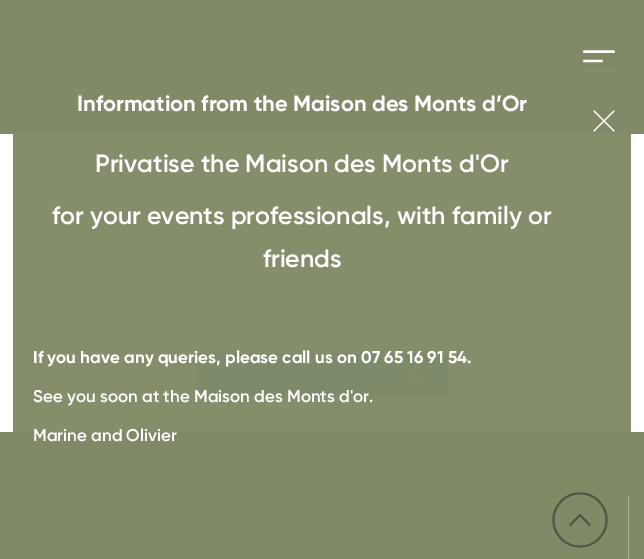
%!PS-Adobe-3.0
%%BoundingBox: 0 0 644 559
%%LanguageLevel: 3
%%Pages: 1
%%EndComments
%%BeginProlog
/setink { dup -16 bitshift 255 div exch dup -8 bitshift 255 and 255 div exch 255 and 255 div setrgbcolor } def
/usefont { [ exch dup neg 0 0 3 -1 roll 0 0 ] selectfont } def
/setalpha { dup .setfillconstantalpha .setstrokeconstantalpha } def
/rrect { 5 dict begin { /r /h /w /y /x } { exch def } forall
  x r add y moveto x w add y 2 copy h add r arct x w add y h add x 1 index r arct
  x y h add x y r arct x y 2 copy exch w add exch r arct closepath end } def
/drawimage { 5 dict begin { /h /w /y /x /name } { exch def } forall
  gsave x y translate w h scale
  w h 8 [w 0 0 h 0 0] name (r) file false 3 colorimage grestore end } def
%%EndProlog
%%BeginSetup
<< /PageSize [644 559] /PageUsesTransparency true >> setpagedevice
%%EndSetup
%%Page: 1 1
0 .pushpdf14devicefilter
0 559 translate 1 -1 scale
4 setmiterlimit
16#FFFFFF setink
0 0 644 559 rectfill
16#818A66 setink
0 0 644 134 rectfill
(img1.raw) 583 50 32 22 drawimage
16#239DDB setink
196 353 252 44 4 rrect fill
(img2.raw) 406 368 16 15 drawimage
16#818A66 setink
0 432 644 127 rectfill
(img3.raw) 552 492 56 56 drawimage
16#A7AD94 setink
628 496 1 63 rectfill
0.97 setalpha
16#818A66 setink
13 67 618 415 6 rrect fill
/Gilroy-Bold 22 usefont
1 setalpha
16#FFFFFF setink
77 111 moveto (Information from the Maison des Monts d’Or) show
/Gilroy-SemiBold 25 usefont
[
    [(Privatise the Maison des Monts d'Or) 95 172]
    [(for your events professionals, with family or) 52 224]
    [(friends) 263 267]
] { aload pop moveto show } forall
/Gilroy-Bold 17 usefont
33 363 moveto (If you have any queries, please call us on 07 65 16 91 54.) show
/Gilroy-SemiBold 17 usefont
33 402 moveto (See you soon at the Maison des Monts d'or.) show
33 441 moveto (Marine and Olivier) show
(img4.raw) 593 110 22 22 drawimage
.poppdf14devicefilter showpage
%%EOF
